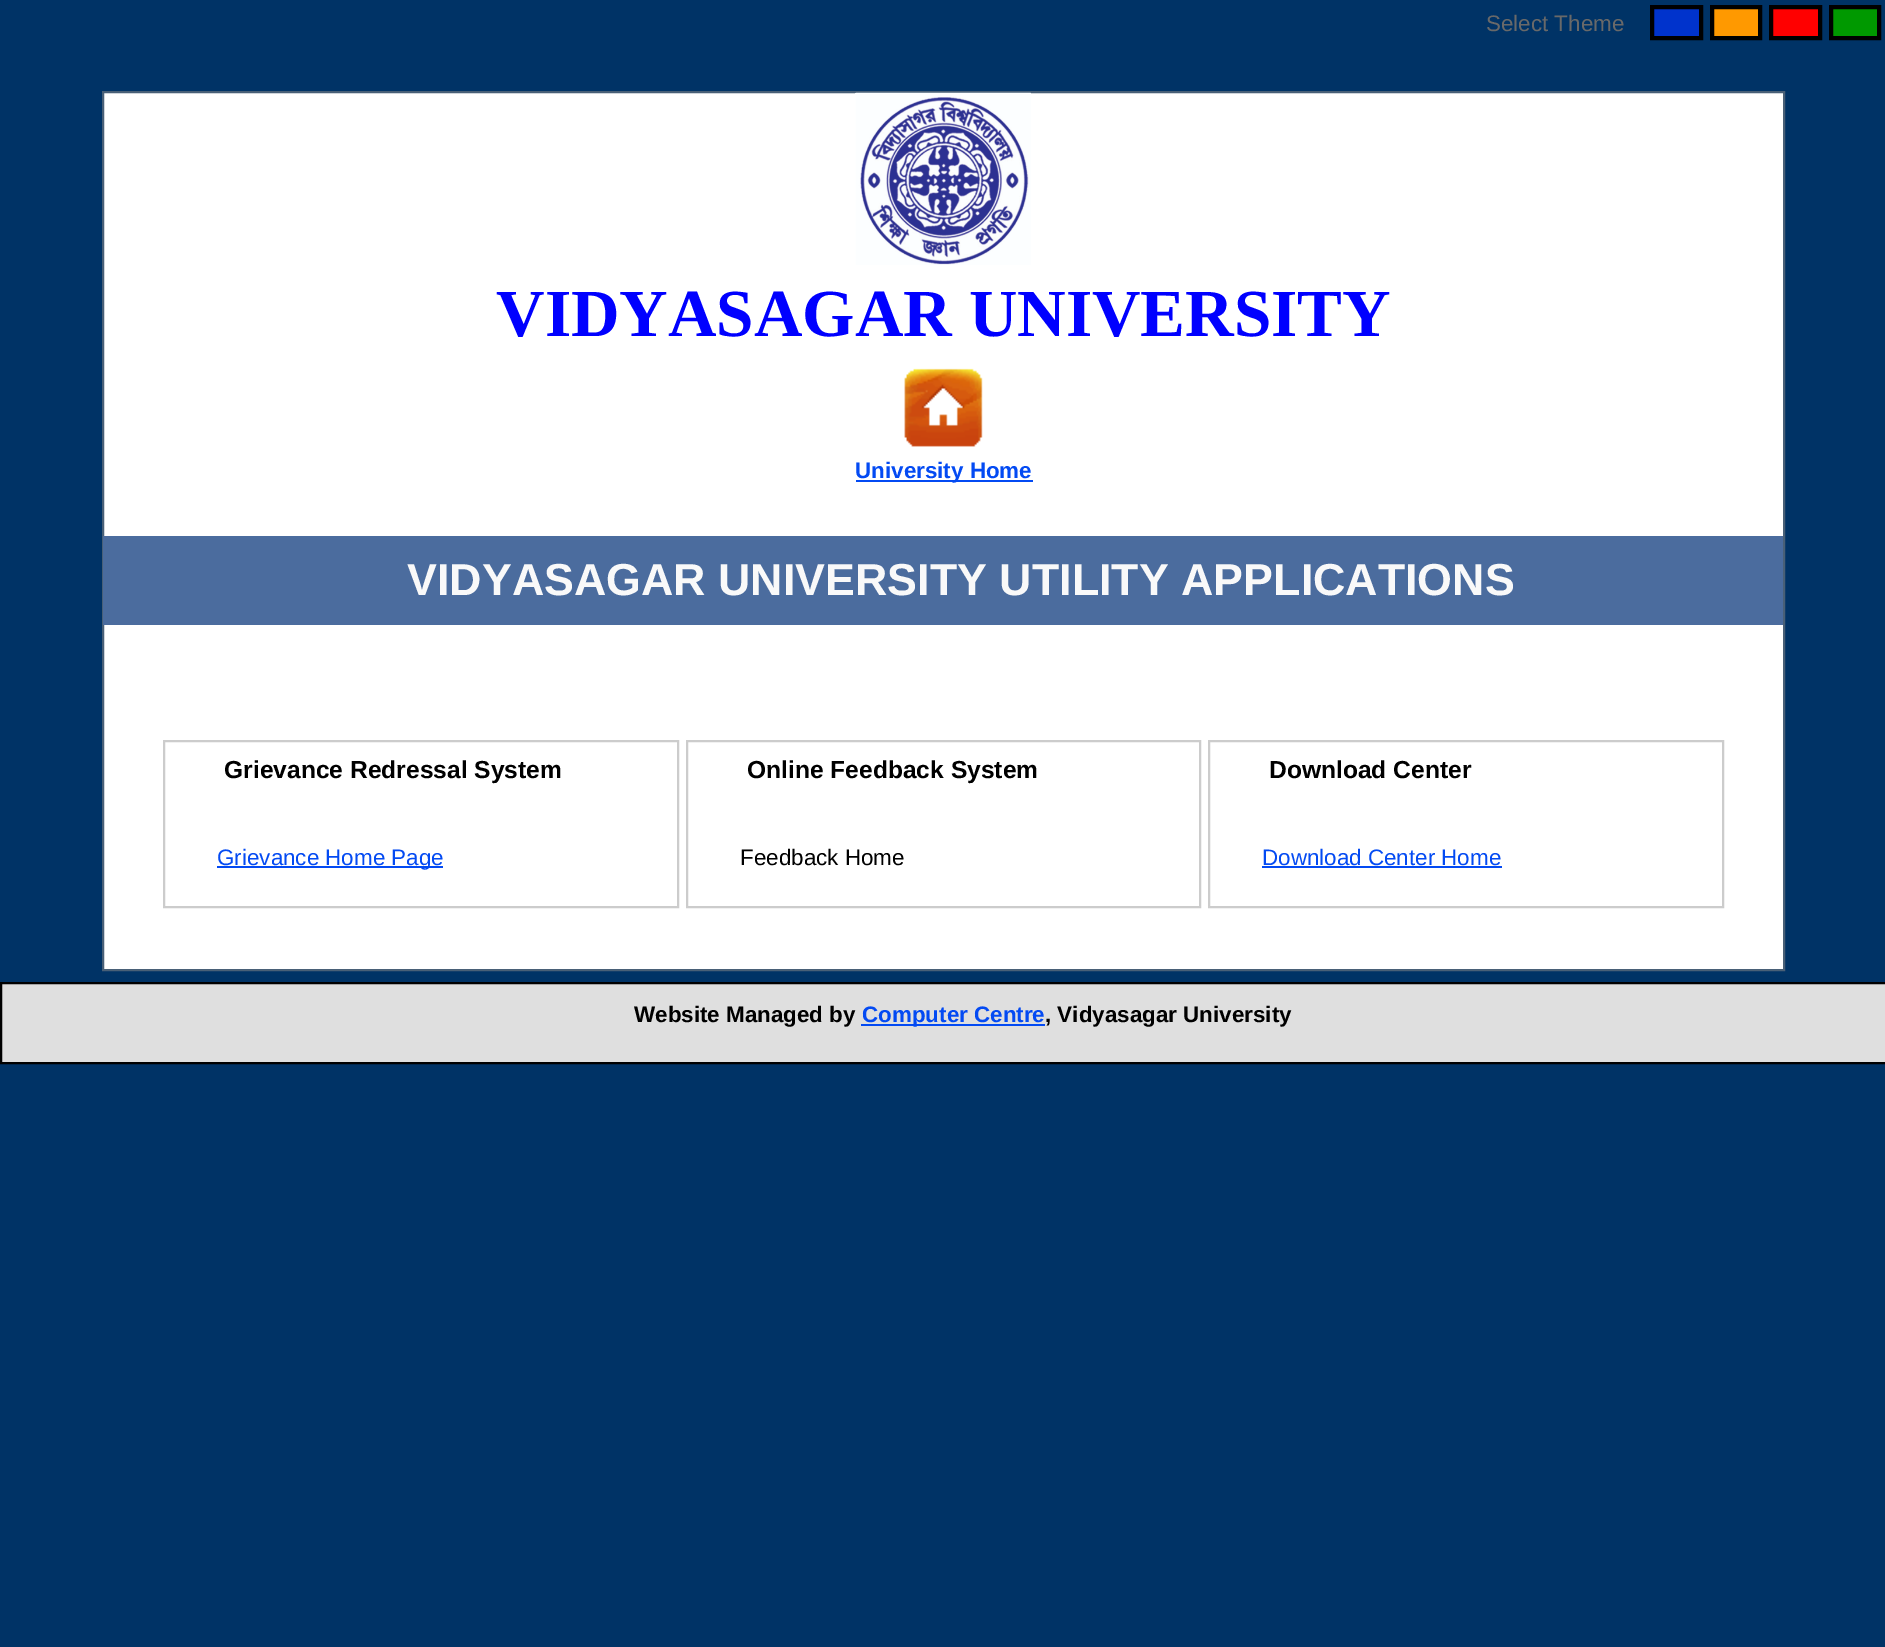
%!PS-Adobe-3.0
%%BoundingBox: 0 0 1885 1647
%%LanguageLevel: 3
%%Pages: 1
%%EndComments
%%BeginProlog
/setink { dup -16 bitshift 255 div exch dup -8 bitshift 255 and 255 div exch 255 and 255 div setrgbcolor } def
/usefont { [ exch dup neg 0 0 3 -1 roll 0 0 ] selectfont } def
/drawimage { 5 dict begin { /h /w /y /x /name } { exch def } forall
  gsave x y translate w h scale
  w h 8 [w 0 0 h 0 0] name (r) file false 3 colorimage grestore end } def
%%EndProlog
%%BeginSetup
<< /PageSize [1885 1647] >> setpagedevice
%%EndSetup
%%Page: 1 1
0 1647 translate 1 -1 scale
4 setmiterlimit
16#003366 setink
0 0 1885 1647 rectfill
/LiberationSans-Regular 22.4 usefont
16#696969 setink
1486 31 moveto (Select Theme) show
16#0033CC setink
1652 7 moveto 1701 7 lineto 1701 38 lineto 1652 38 lineto closepath gsave fill grestore
16#000000 setink
4 setlinewidth
stroke
16#FF9900 setink
1712 7 moveto 1760 7 lineto 1760 38 lineto 1712 38 lineto closepath gsave fill grestore
16#000000 setink
stroke
16#FF0000 setink
1771 7 moveto 1820 7 lineto 1820 38 lineto 1771 38 lineto closepath gsave fill grestore
16#000000 setink
stroke
16#009900 setink
1831 7 moveto 1879 7 lineto 1879 38 lineto 1831 38 lineto closepath gsave fill grestore
16#000000 setink
stroke
16#FFFFFF setink
103 92 moveto 1784 92 lineto 1784 970 lineto 103 970 lineto closepath gsave fill grestore
16#496077 setink
2 setlinewidth
stroke
(img1.raw) 855 92 176 173 drawimage
/LiberationSerif-Bold 67.25 usefont
16#0000FF setink
496 336 moveto (VIDYASAGAR UNIVERSITY) show
(img2.raw) 904 368 79 79 drawimage
16#034AF3 setink
856 480 177 2 rectfill
/LiberationSans-Bold 22.4 usefont
855 478 moveto (University Home) show
16#4B6C9E setink
103 536 1680 89 rectfill
/LiberationSans-Bold 44.8 usefont
16#F9F9F9 setink
407 595 moveto (VIDYASAGAR UNIVERSITY UTILITY APPLICATIONS) show
16#CCCCCC setink
164 741 514 166 rectstroke
/LiberationSans-Bold 24.6 usefont
16#000000 setink
224 778 moveto (Grievance Redressal System) show
16#034AF3 setink
217 866 226 2 rectfill
/LiberationSans-Regular 22.4 usefont
217 865 moveto (Grievance Home Page) show
16#CCCCCC setink
687 741 513 166 rectstroke
/LiberationSans-Bold 24.6 usefont
16#000000 setink
747 778 moveto (Online Feedback System) show
/LiberationSans-Regular 22.4 usefont
740 865 moveto (Feedback Home) show
16#CCCCCC setink
1209 741 514 166 rectstroke
/LiberationSans-Bold 24.6 usefont
16#000000 setink
1269 778 moveto (Download Center) show
/LiberationSans-Regular 22.4 usefont
16#034AF3 setink
1262 865 moveto (Download Center Home) show
1262 866 240 2 rectfill
16#DFDFDF setink
1 983 moveto 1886 983 lineto 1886 1063 lineto 1 1063 lineto closepath gsave fill grestore
16#000000 setink
stroke
/LiberationSans-Bold 22.4 usefont
634 1022 moveto (Website Managed by) show
16#034AF3 setink
861 1024 184 2 rectfill
862 1022 moveto (Computer Centre) show
16#000000 setink
1045 1022 moveto (, Vidyasagar University) show
showpage
%%EOF
